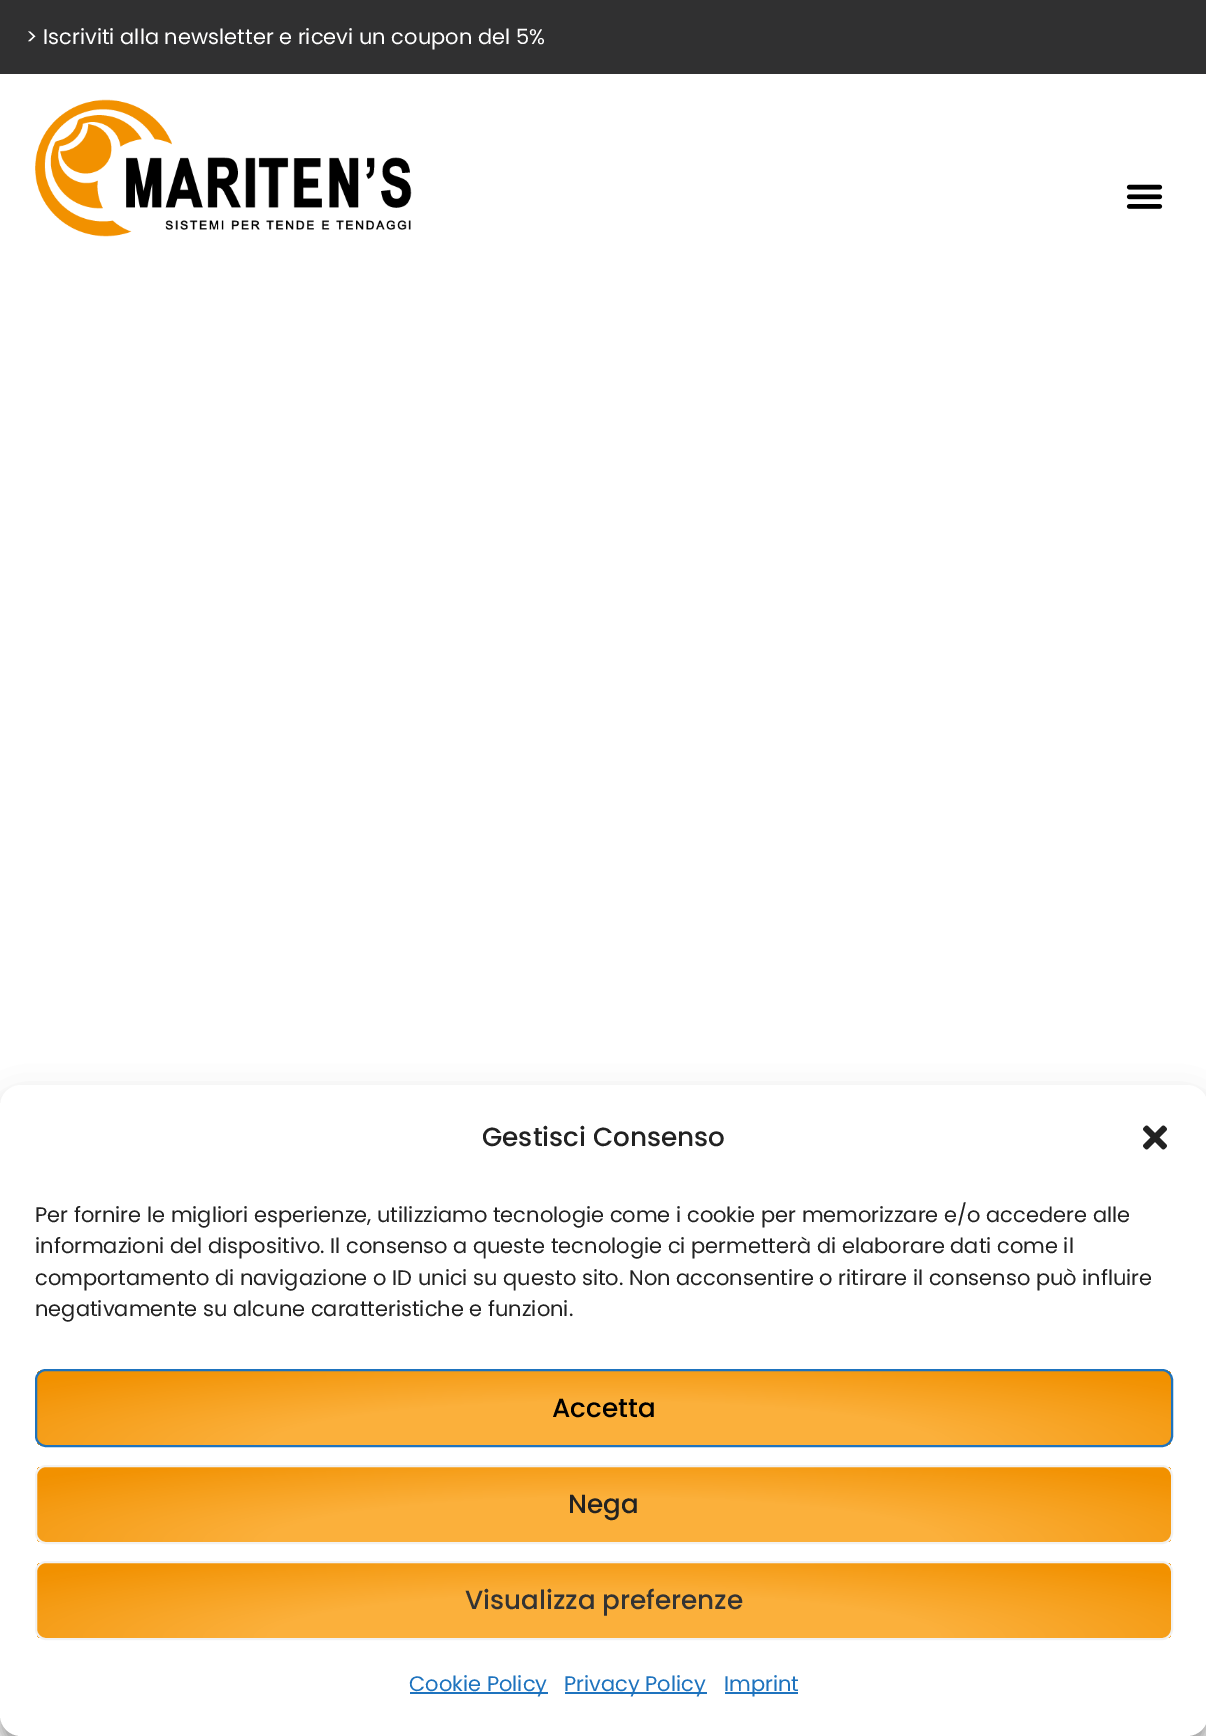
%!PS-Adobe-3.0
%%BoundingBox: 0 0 1206 1736
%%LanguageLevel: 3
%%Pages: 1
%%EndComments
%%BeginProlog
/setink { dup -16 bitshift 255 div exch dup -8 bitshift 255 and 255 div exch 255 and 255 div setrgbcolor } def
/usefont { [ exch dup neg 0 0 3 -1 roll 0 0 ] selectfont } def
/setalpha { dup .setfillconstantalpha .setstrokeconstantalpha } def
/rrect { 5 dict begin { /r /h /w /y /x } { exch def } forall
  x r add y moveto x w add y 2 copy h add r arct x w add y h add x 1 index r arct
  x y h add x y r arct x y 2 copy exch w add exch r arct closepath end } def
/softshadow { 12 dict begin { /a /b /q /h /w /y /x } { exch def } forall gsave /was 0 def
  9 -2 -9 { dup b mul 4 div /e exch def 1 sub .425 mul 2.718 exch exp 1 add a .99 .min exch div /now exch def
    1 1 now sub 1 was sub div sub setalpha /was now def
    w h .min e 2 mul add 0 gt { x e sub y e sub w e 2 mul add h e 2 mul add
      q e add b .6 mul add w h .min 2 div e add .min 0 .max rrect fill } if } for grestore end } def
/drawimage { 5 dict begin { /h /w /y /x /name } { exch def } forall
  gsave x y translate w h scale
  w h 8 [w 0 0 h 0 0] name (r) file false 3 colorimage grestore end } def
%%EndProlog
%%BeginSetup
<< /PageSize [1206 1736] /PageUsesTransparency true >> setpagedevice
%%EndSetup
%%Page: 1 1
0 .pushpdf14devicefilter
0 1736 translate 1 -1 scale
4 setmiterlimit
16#FFFFFF setink
0 0 1206 1736 rectfill
16#303031 setink
0 0 1206 74 rectfill
/Poppins-Regular 21 usefont
16#FFFFFF setink
26 44 moveto (> Iscriviti alla newsletter e ricevi un coupon del 5%) show
(img1.raw) 35 99 377 138 drawimage
(img2.raw) 1126 184 37 25 drawimage
16#000000 setink
0 1096 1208 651 21 5 0.23 softshadow
0 1103 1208 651 21 17.5 0.19 softshadow
16#FFFFFF setink
0 1085 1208 651 21 rrect fill
/Poppins-Medium 26.25 usefont
16#222222 setink
482 1146 moveto (Gestisci Consenso) show
(img3.raw) 1143 1125 24 25 drawimage
/Poppins-Regular 21 usefont
[
    [(Per fornire le migliori esperienze, utilizziamo tecnologie come i cookie per memorizzare e/o accedere alle) 35 1222]
    [(informazioni del dispositivo. Il consenso a queste tecnologie ci permetterà di elaborare dati come il) 35 1253]
    [(comportamento di navigazione o ID unici su questo sito. Non acconsentire o ritirare il consenso può influire) 35 1285]
    [(negativamente su alcune caratteristiche e funzioni.) 35 1316]
] { aload pop moveto show } forall
gsave
35 1369 1138 78 11 rrect clip newpath
gsave 37 1370 moveto 1171 1370 lineto 1171 1446 lineto 37 1446 lineto closepath clip newpath 604 1446 translate 802 106 scale
<< /ShadingType 3 /ColorSpace /DeviceRGB /Coords [0 0 0 0 0 1] /Extend [true true] /Function << /FunctionType 3 /Domain [0 1] /Functions [<< /FunctionType 2 /Domain [0 1] /C0 [0.984 0.69 0.231] /C1 [0.984 0.69 0.231] /N 1 >> << /FunctionType 2 /Domain [0 1] /C0 [0.984 0.69 0.231] /C1 [0.949 0.569 0] /N 1 >> << /FunctionType 2 /Domain [0 1] /C0 [0.949 0.569 0] /C1 [0.949 0.569 0] /N 1 >>] /Bounds [0.42 0.93] /Encode [0 1 0 1 0 1] >> >> shfill grestore
grestore
16#1E73BE setink
2 setlinewidth
36 1370 1136 76 10 rrect stroke
/Poppins-Medium 26.25 usefont
16#000000 setink
552 1417 moveto (Accetta) show
gsave
35 1465 1138 79 11 rrect clip newpath
gsave 37 1467 moveto 1171 1467 lineto 1171 1542 lineto 37 1542 lineto closepath clip newpath 604 1542 translate 802 106 scale
<< /ShadingType 3 /ColorSpace /DeviceRGB /Coords [0 0 0 0 0 1] /Extend [true true] /Function << /FunctionType 3 /Domain [0 1] /Functions [<< /FunctionType 2 /Domain [0 1] /C0 [0.984 0.69 0.231] /C1 [0.984 0.69 0.231] /N 1 >> << /FunctionType 2 /Domain [0 1] /C0 [0.984 0.69 0.231] /C1 [0.949 0.569 0] /N 1 >> << /FunctionType 2 /Domain [0 1] /C0 [0.949 0.569 0] /C1 [0.949 0.569 0] /N 1 >>] /Bounds [0.42 0.93] /Encode [0 1 0 1 0 1] >> >> shfill grestore
grestore
16#F2F2F2 setink
36 1466 1136 77 10 rrect stroke
16#222222 setink
568 1513 moveto (Nega) show
gsave
35 1561 1138 79 11 rrect clip newpath
gsave 37 1563 moveto 1171 1563 lineto 1171 1638 lineto 37 1638 lineto closepath clip newpath 604 1638 translate 802 106 scale
<< /ShadingType 3 /ColorSpace /DeviceRGB /Coords [0 0 0 0 0 1] /Extend [true true] /Function << /FunctionType 3 /Domain [0 1] /Functions [<< /FunctionType 2 /Domain [0 1] /C0 [0.984 0.69 0.231] /C1 [0.984 0.69 0.231] /N 1 >> << /FunctionType 2 /Domain [0 1] /C0 [0.984 0.69 0.231] /C1 [0.949 0.569 0] /N 1 >> << /FunctionType 2 /Domain [0 1] /C0 [0.949 0.569 0] /C1 [0.949 0.569 0] /N 1 >>] /Bounds [0.42 0.93] /Encode [0 1 0 1 0 1] >> >> shfill grestore
grestore
16#F2F2F2 setink
36 1562 1136 77 10 rrect stroke
16#333333 setink
465 1609 moveto (Visualizza preferenze) show
16#1E73BE setink
410 1692 138 2 rectfill
/Poppins-Regular 21 usefont
409 1691 moveto (Cookie Policy) show
565 1692 142 2 rectfill
564 1691 moveto (Privacy Policy) show
725 1692 73 2 rectfill
724 1691 moveto (Imprint) show
.poppdf14devicefilter showpage
%%EOF
